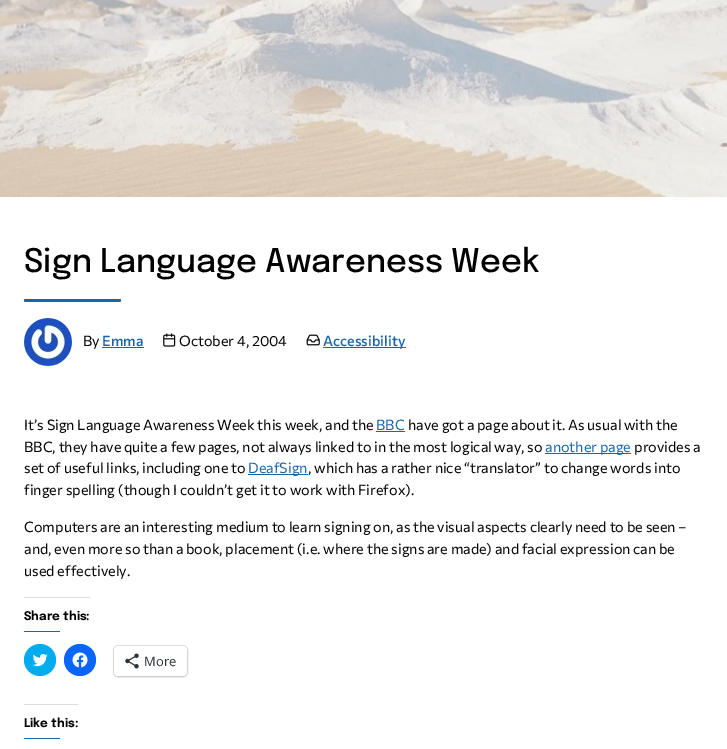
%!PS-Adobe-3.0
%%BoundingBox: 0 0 727 749
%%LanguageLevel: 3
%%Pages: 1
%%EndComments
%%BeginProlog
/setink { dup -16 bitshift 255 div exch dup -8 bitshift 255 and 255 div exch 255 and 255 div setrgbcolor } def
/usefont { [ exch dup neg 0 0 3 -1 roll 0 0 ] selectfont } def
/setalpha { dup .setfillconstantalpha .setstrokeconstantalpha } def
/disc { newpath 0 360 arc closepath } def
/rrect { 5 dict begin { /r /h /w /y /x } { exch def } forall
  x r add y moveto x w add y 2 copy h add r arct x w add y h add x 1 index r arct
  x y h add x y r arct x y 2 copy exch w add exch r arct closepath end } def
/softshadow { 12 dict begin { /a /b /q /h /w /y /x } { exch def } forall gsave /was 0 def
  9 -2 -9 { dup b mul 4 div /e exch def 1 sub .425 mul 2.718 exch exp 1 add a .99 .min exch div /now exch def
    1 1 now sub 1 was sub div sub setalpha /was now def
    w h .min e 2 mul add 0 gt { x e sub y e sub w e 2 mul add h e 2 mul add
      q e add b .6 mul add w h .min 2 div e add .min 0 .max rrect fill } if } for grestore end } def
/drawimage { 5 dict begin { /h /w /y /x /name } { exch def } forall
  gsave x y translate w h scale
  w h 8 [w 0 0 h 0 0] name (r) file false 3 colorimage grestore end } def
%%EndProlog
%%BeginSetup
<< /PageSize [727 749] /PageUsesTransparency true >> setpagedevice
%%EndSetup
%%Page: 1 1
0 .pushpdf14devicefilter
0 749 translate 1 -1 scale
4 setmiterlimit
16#FFFFFF setink
0 0 727 749 rectfill
16#EEEEEC setink
0 0 727 197 rectfill
(img1.raw) 0 0 727 197 drawimage
/Epilogue-Medium 32.4 usefont
16#000000 setink
24 272 moveto (Sign Language Awareness Week) show
16#1865A9 setink
24 299 97 3 1.5 rrect fill
(img2.raw) 24 318 48 48 drawimage
/Commissioner-Regular 14.4 usefont
16#000000 setink
83 346 moveto (By) show
16#1865A9 setink
102 347 42 1 rectfill
/Commissioner-Medium 14.4 usefont
102 346 moveto (Emma) show
(img3.raw) 163 333 13 14 drawimage
/Commissioner-Regular 14.4 usefont
16#000000 setink
179 346 moveto (October 4, 2004) show
(img4.raw) 306 334 14 12 drawimage
16#1865A9 setink
323 347 83 1 rectfill
/Commissioner-Medium 14.4 usefont
323 346 moveto (Accessibility) show
/Commissioner-Regular 14.4 usefont
16#000000 setink
24 430 moveto (It’s Sign Language Awareness Week this week, and the) show
16#1865A9 setink
376 430 moveto (BBC) show
376 431 29 1 rectfill
16#000000 setink
408 430 moveto (have got a page about it. As usual with the) show
24 452 moveto (BBC, they have quite a few pages, not always linked to in the most logical way, so) show
16#1865A9 setink
545 453 86 1 rectfill
545 452 moveto (another page) show
16#000000 setink
634 452 moveto (provides a) show
24 473 moveto (set of useful links, including one to) show
16#1865A9 setink
248 474 60 1 rectfill
248 473 moveto (DeafSign) show
16#000000 setink
[
    [(, which has a rather nice “translator” to change words into) 308 473]
    [(finger spelling \(though I couldn’t get it to work with Firefox\).) 24 495]
    [(Computers are an interesting medium to learn signing on, as the visual aspects clearly need to be seen –) 24 532]
    [(and, even more so than a book, placement \(i.e. where the signs are made\) and facial expression can be) 24 554]
    [(used effectively.) 24 576]
] { aload pop moveto show } forall
16#DCDCDE setink
24 597 66 1 rectfill
/Epilogue-Bold 12 usefont
16#000000 setink
24 620 moveto (Share this:) show
16#1865A9 setink
24 631 36 1 0.5 rrect fill
16#00ACEE setink
40 660 16 disc fill
(img5.raw) 32 654 16 13 drawimage
16#0866FF setink
80 660 16 disc fill
(img6.raw) 72 652 16 16 drawimage
16#E0E0E0 setink
113.5 645.5 74 31 4.5 rrect stroke
16#000000 setink
114 647 73 30 4 1 0.12 softshadow
16#FFFFFF setink
114 646 73 30 4 rrect fill
(img7.raw) 125 653 14 16 drawimage
/OpenSans-Regular 13 usefont
16#2C3338 setink
144 666 moveto (More) show
16#DCDCDE setink
24 704 54 1 rectfill
/Epilogue-Bold 12 usefont
16#000000 setink
24 727 moveto (Like this:) show
16#1865A9 setink
24 738 36 1 0.5 rrect fill
.poppdf14devicefilter showpage
%%EOF
